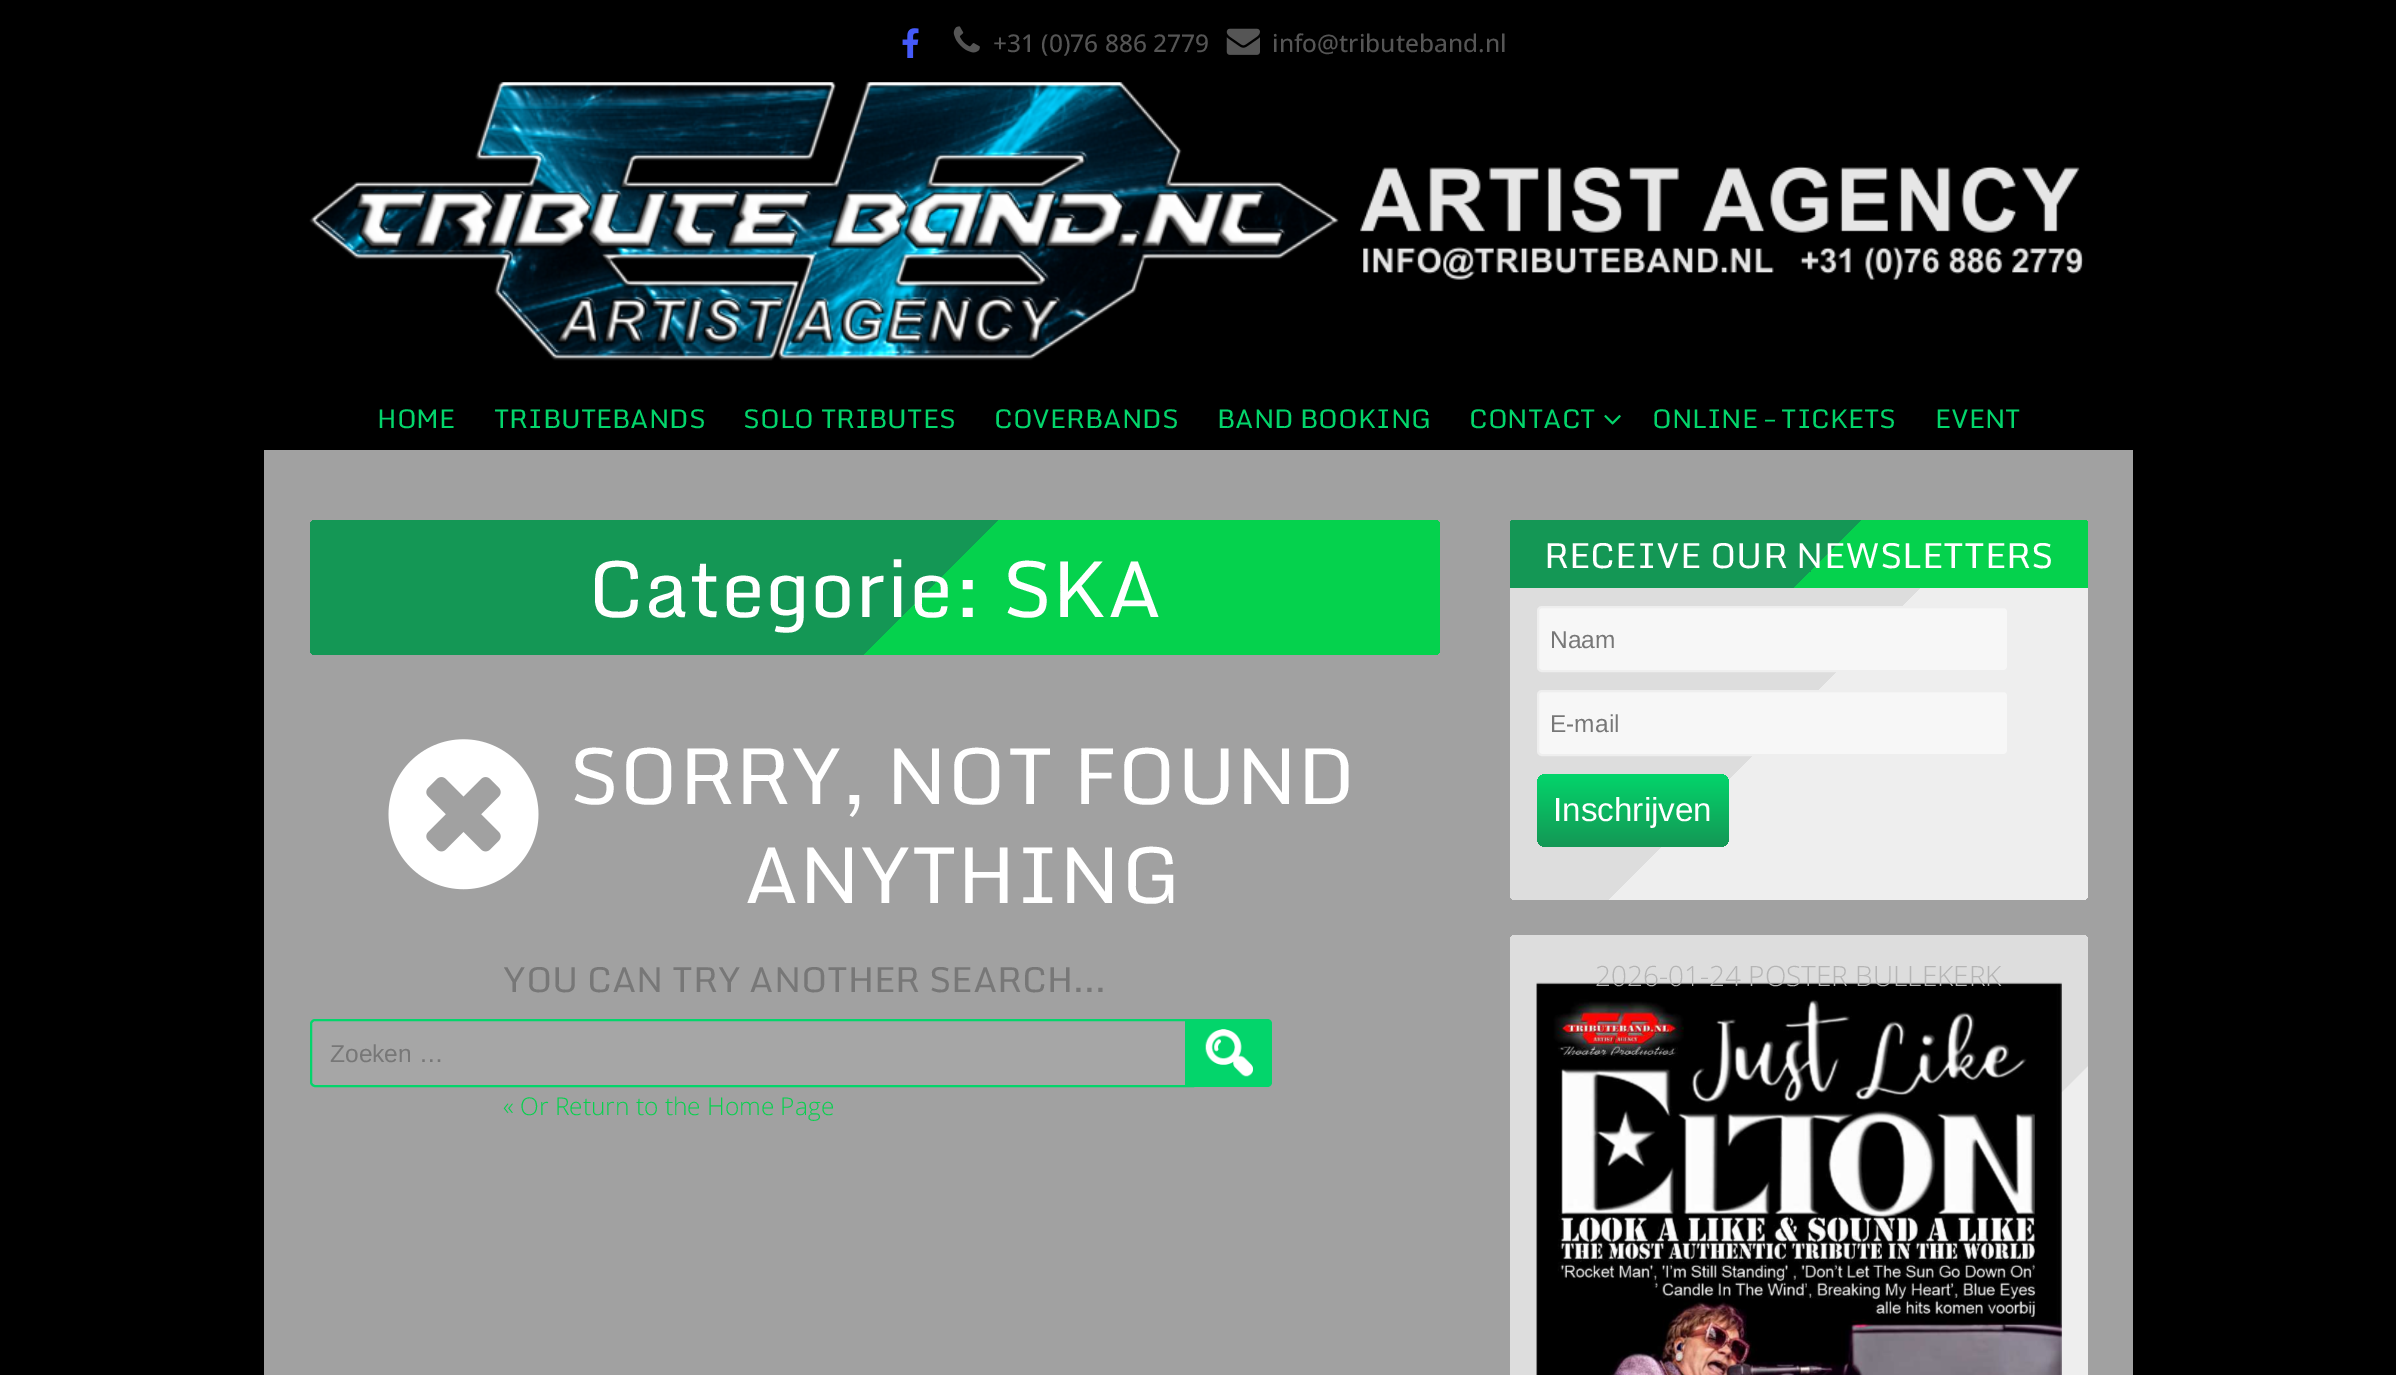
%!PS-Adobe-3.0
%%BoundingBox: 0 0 2396 1375
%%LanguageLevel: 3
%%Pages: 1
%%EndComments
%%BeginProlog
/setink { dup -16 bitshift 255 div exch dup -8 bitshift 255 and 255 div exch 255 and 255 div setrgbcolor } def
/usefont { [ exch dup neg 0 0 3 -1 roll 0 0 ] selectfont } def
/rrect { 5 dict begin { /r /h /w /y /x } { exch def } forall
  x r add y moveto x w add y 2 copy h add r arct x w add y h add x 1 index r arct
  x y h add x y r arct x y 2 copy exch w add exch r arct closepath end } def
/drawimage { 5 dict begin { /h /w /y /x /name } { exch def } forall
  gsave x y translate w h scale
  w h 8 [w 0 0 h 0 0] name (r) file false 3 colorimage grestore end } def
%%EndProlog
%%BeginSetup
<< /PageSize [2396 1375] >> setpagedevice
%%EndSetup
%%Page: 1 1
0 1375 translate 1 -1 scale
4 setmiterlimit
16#000000 setink
0 0 2396 1375 rectfill
(img1.raw) 902 28 17 30 drawimage
(img2.raw) 953 26 27 27 drawimage
/OpenSans-Medium 24.5 usefont
16#555555 setink
993 52 moveto (+31 \(0\)76 886 2779) show
(img3.raw) 1226 28 34 27 drawimage
1272 52 moveto (info@tributeband.nl) show
(img4.raw) 309 82 1775 279 drawimage
/Monda-Regular 26.25 usefont
16#03D56B setink
[
    [(HOME) 377 428]
    [(TRIBUTEBANDS) 494 428]
    [(SOLO TRIBUTES) 743 428]
    [(COVERBANDS) 994 428]
    [(BAND BOOKING) 1217 428]
    [(CONTACT) 1469 428]
] { aload pop moveto show } forall
(img5.raw) 1604 415 17 10 drawimage
1652 428 moveto (ONLINE – TICKETS) show
1935 428 moveto (EVENT) show
16#A1A1A1 setink
264 450 1869 925 rectfill
gsave 310 520 1130 135 5 rrect clip newpath
<< /ShadingType 2 /ColorSpace /DeviceRGB /Coords [1276 932 587 243] /Extend [true true] /Function << /FunctionType 3 /Domain [0 1] /Functions [<< /FunctionType 2 /Domain [0 1] /C0 [0.02 0.824 0.302] /C1 [0.02 0.824 0.302] /N 1 >> << /FunctionType 2 /Domain [0 1] /C0 [0.078 0.592 0.333] /C1 [0.078 0.592 0.333] /N 1 >>] /Bounds [0.5] /Encode [0 1 0 1] >> >> shfill grestore
/Monda-Regular 78.75 usefont
16#FFFFFF setink
588 617 moveto (Categorie: SKA) show
(img6.raw) 388 739 151 151 drawimage
569 804 moveto (SORRY, NOT FOUND) show
744 903 moveto (ANYTHING) show
/Monda-Regular 35 usefont
16#777777 setink
503 992 moveto (YOU CAN TRY ANOTHER SEARCH...) show
16#A6A6A6 setink
315 1020 moveto 1193 1020 lineto 1193 1086 lineto 315 1086 lineto 313 1086 311 1084 311 1082 curveto 311 1024 lineto 311 1022 313 1020 315 1020 curveto closepath gsave fill grestore
16#03D56B setink
2 setlinewidth
stroke
/LiberationSans-Regular 24.5 usefont
16#777777 setink
330 1062 moveto (Zoeken …) show
16#03D56B setink
1185 1019 moveto 1267 1019 lineto 1270 1019 1272 1021 1272 1024 curveto 1272 1082 lineto 1272 1085 1270 1087 1267 1087 curveto 1185 1087 lineto closepath fill
(img7.raw) 1205 1029 48 48 drawimage
/OpenSans-Light 24.5 usefont
16#05D24D setink
503 1115 moveto (« Or Return to the Home Page) show
gsave 1510 520 578 380 5 rrect clip newpath
<< /ShadingType 2 /ColorSpace /DeviceRGB /Coords [2038 949 1560 470] /Extend [true true] /Function << /FunctionType 3 /Domain [0 1] /Functions [<< /FunctionType 2 /Domain [0 1] /C0 [0.933 0.933 0.933] /C1 [0.933 0.933 0.933] /N 1 >> << /FunctionType 2 /Domain [0 1] /C0 [0.867 0.867 0.867] /C1 [0.867 0.867 0.867] /N 1 >>] /Bounds [0.5] /Encode [0 1 0 1] >> >> shfill grestore
gsave 1515 520 moveto 2083 520 lineto 2086 520 2088 522 2088 525 curveto 2088 588 lineto 1510 588 lineto 1510 525 lineto 1510 522 1512 520 1515 520 curveto closepath clip newpath
<< /ShadingType 2 /ColorSpace /DeviceRGB /Coords [2004 730 1652 378] /Extend [true true] /Function << /FunctionType 3 /Domain [0 1] /Functions [<< /FunctionType 2 /Domain [0 1] /C0 [0.02 0.824 0.302] /C1 [0.02 0.824 0.302] /N 1 >> << /FunctionType 2 /Domain [0 1] /C0 [0.078 0.592 0.333] /C1 [0.078 0.592 0.333] /N 1 >>] /Bounds [0.5] /Encode [0 1 0 1] >> >> shfill grestore
/Monda-Regular 35 usefont
16#FFFFFF setink
1544 568 moveto (RECEIVE OUR NEWSLETTERS) show
16#F7F7F7 setink
1538 607 470 64 4 rrect gsave fill grestore
16#EEEEEE setink
stroke
/LiberationSans-Regular 24.5 usefont
16#777777 setink
1550 648 moveto (Naam) show
16#F7F7F7 setink
1538 691 470 64 4 rrect gsave fill grestore
16#EEEEEE setink
stroke
16#777777 setink
1550 732 moveto (E-mail) show
gsave 1537 774 192 73 9 rrect clip newpath
<< /ShadingType 2 /ColorSpace /DeviceRGB /Coords [1633 774 1633 847] /Extend [true true] /Function << /FunctionType 2 /Domain [0 1] /C0 [0.012 0.835 0.42] /C1 [0.078 0.592 0.333] /N 1 >> >> shfill grestore
/LiberationSans-Regular 33.25 usefont
16#FFFFFF setink
1553 821 moveto (Inschrijven) show
gsave 1510 935 578 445 5 rrect clip newpath
<< /ShadingType 2 /ColorSpace /DeviceRGB /Coords [2153 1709 1445 1000] /Extend [true true] /Function << /FunctionType 3 /Domain [0 1] /Functions [<< /FunctionType 2 /Domain [0 1] /C0 [0.933 0.933 0.933] /C1 [0.933 0.933 0.933] /N 1 >> << /FunctionType 2 /Domain [0 1] /C0 [0.867 0.867 0.867] /C1 [0.867 0.867 0.867] /N 1 >>] /Bounds [0.5] /Encode [0 1 0 1] >> >> shfill grestore
(img8.raw) 1536 982 526 393 drawimage
/OpenSans-Light 28 usefont
16#B5B5B5 setink
1595 986 moveto (2026-01-24 POSTER BULLEKERK) show
showpage
%%EOF
